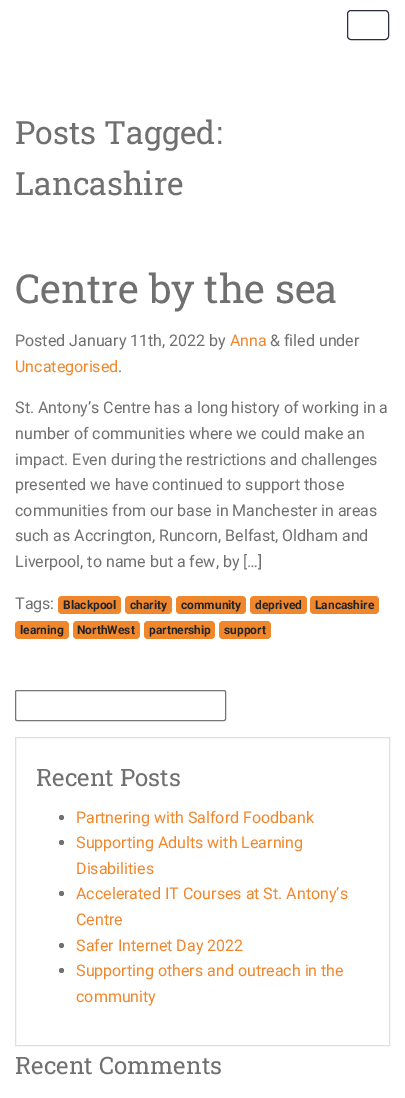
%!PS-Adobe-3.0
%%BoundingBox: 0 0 405 1098
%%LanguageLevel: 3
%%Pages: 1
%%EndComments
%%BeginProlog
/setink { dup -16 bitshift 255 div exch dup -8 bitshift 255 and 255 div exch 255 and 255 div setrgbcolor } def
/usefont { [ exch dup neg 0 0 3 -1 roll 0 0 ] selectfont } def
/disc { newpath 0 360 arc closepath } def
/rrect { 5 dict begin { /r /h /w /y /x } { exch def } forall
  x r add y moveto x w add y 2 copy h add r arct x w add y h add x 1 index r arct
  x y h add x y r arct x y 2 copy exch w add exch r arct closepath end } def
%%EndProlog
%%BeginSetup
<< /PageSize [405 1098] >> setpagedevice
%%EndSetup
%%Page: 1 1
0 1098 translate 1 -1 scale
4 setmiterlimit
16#FFFFFF setink
0 0 405 1098 rectfill
16#2A2E43 setink
347.5 10.5 41 29 3.5 rrect stroke
/RobotoSlab-Regular 32 usefont
16#707070 setink
15 144 moveto (Posts Tagged:) show
15 195 moveto (Lancashire) show
/RobotoSlab-Regular 40 usefont
15 303 moveto (Centre by the sea) show
/Roboto-Regular 16 usefont
15 346 moveto (Posted January 11th, 2022 by) show
16#F1872C setink
230 346 moveto (Anna) show
16#707070 setink
270 346 moveto (& filed under) show
16#F1872C setink
15 372 moveto (Uncategorised) show
16#707070 setink
[
    [(.) 118 372]
    [(St. Antony’s Centre has a long history of working in a) 15 413]
    [(number of communities where we could make an) 15 439]
    [(impact. Even during the restrictions and challenges) 15 465]
    [(presented we have continued to support those) 15 490]
    [(communities from our base in Manchester in areas) 15 516]
    [(such as Accrington, Runcorn, Belfast, Oldham and) 15 541]
    [(Liverpool, to name but a few, by […]) 15 567]
    [(Tags:) 15 609]
] { aload pop moveto show } forall
16#F1872C setink
58 596 63 18 4 rrect fill
/Roboto-Bold 12 usefont
16#212529 setink
63 609 moveto (Blackpool) show
16#F1872C setink
125 596 47 18 4 rrect fill
16#212529 setink
130 609 moveto (charity) show
16#F1872C setink
176 596 70 18 4 rrect fill
16#212529 setink
181 609 moveto (community) show
16#F1872C setink
250 596 57 18 4 rrect fill
16#212529 setink
255 609 moveto (deprived) show
16#F1872C setink
310 596 69 18 4 rrect fill
16#212529 setink
315 609 moveto (Lancashire) show
16#F1872C setink
15 621 54 18 4 rrect fill
16#212529 setink
20 634 moveto (learning) show
16#F1872C setink
73 621 67 18 4 rrect fill
16#212529 setink
77 634 moveto (NorthWest) show
16#F1872C setink
144 621 71 18 4 rrect fill
16#212529 setink
149 634 moveto (partnership) show
16#F1872C setink
219 621 52 18 4 rrect fill
16#212529 setink
224 634 moveto (support) show
16#767676 setink
15.5 690.5 210 30 1.5 rrect stroke
16#DFDFDF setink
15.5 737.5 374 308 rectstroke
/RobotoSlab-Regular 24 usefont
16#707070 setink
36 786 moveto (Recent Posts) show
61.5 817.5 2.5 disc fill
/Roboto-Regular 16 usefont
16#F1872C setink
76 823 moveto (Partnering with Salford Foodbank) show
16#707070 setink
61.5 842.5 2.5 disc fill
16#F1872C setink
76 848 moveto (Supporting Adults with Learning) show
76 874 moveto (Disabilities) show
16#707070 setink
61.5 893.5 2.5 disc fill
16#F1872C setink
76 899 moveto (Accelerated IT Courses at St. Antony’s) show
76 925 moveto (Centre) show
16#707070 setink
61.5 945.5 2.5 disc fill
16#F1872C setink
76 951 moveto (Safer Internet Day 2022) show
16#707070 setink
61.5 970.5 2.5 disc fill
16#F1872C setink
76 976 moveto (Supporting others and outreach in the) show
76 1002 moveto (community) show
/RobotoSlab-Regular 24 usefont
16#707070 setink
15 1074 moveto (Recent Comments) show
showpage
%%EOF
